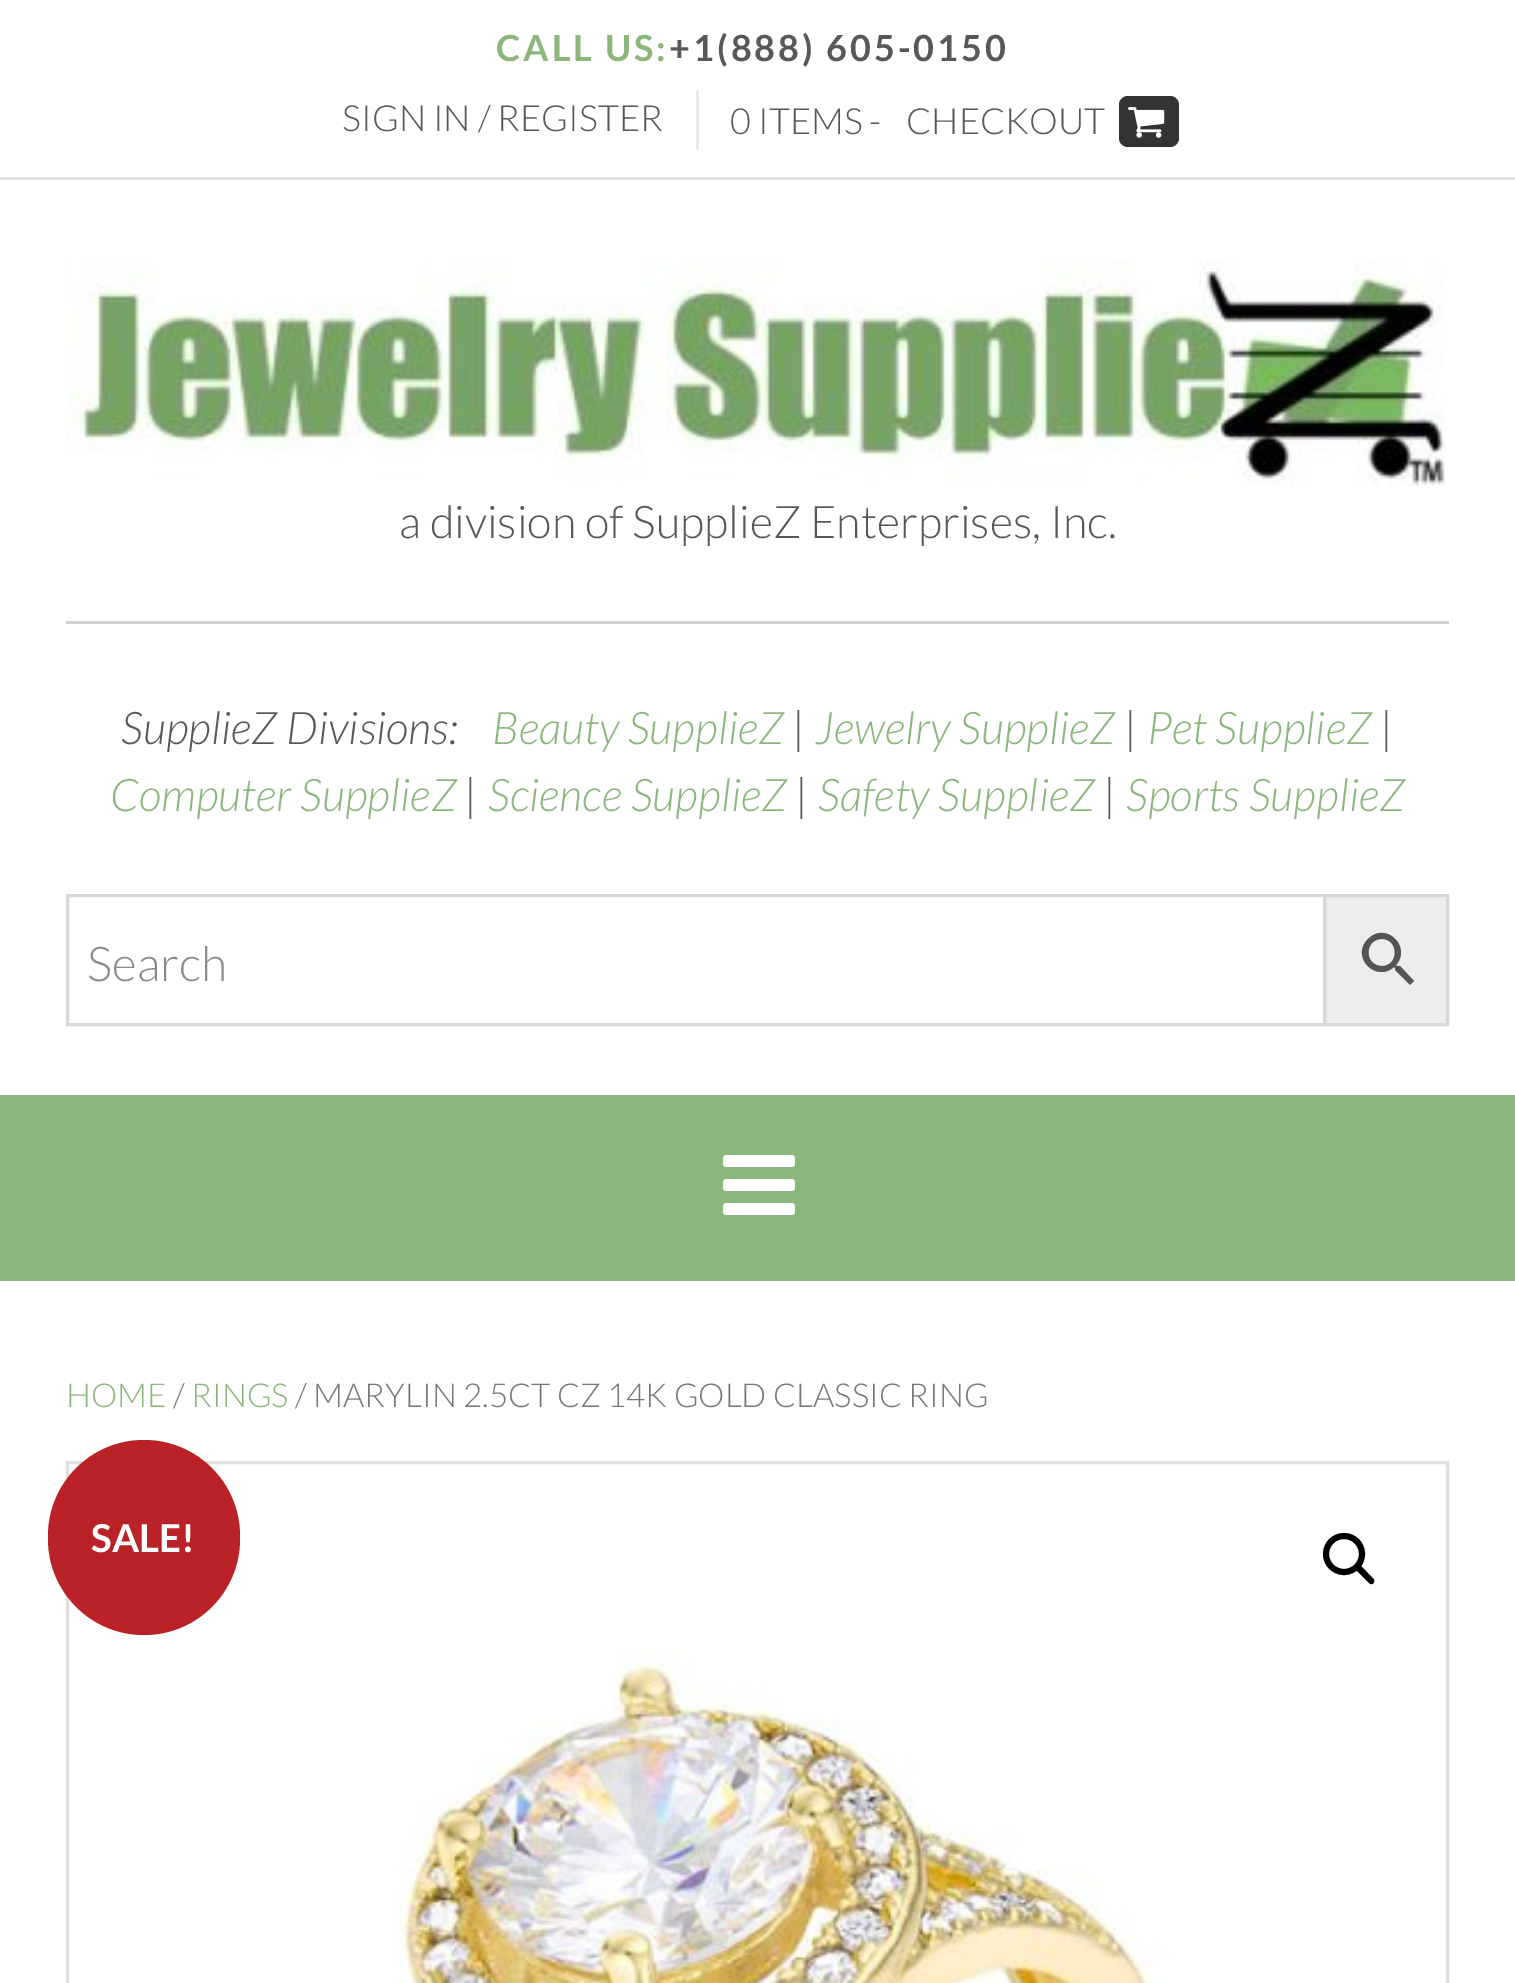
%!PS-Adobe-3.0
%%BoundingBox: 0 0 1515 1983
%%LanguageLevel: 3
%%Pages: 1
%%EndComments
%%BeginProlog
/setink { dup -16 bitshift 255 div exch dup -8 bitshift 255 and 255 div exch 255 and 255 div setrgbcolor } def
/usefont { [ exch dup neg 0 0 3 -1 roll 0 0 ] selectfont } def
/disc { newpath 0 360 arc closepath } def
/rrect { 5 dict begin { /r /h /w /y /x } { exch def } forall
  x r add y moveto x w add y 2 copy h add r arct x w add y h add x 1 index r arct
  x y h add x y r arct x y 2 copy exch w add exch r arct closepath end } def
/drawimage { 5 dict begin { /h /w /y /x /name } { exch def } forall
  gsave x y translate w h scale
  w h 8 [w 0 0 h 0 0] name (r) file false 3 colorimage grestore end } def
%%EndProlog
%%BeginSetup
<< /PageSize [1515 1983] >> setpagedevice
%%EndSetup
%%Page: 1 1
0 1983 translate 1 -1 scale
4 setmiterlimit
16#FFFFFF setink
0 0 1515 1983 rectfill
16#E0E0E0 setink
0 177 1515 3 rectfill
/Lato-Bold 36 usefont
16#8BB77C setink
496 61 moveto 3 0 (CALL US:) ashow
16#58585A setink
669 61 moveto 3 0 (+1\(888\) 605-0150) ashow
16#EBEBEB setink
696 90 3 60 rectfill
/Lato-Light 36 usefont
16#58585A setink
[
    [(SIGN IN / REGISTER) 342 131]
    [(0 ITEMS -) 730 134]
    [(CHECKOUT) 906 134]
] { aload pop moveto show } forall
16#333333 setink
1119 96 60 51 9 rrect fill
(img1.raw) 1128 107 37 31 drawimage
(img2.raw) 66 261 1380 225 drawimage
/Lato-Light 45 usefont
16#58585A setink
399 538 moveto (a division of SupplieZ Enterprises, Inc.) show
16#D0D2D4 setink
66 621 1383 3 rectfill
/Lato-LightItalic 45 usefont
16#58585A setink
121 744 moveto (SupplieZ Divisions:) show
16#8BB77C setink
492 744 moveto (Beauty SupplieZ) show
16#58585A setink
793 744 moveto (|) show
16#8BB77C setink
815 744 moveto (Jewelry SupplieZ) show
16#58585A setink
1125 744 moveto (|) show
16#8BB77C setink
1147 744 moveto (Pet SupplieZ) show
16#58585A setink
1381 744 moveto (|) show
16#8BB77C setink
110 811 moveto (Computer SupplieZ) show
16#58585A setink
465 811 moveto (|) show
16#8BB77C setink
488 811 moveto (Science SupplieZ) show
16#58585A setink
796 811 moveto (|) show
16#8BB77C setink
818 811 moveto (Safety SupplieZ) show
16#58585A setink
1104 811 moveto (|) show
16#8BB77C setink
1126 811 moveto (Sports SupplieZ) show
16#EDEDED setink
1324.5 895.5 moveto 1447.5 895.5 lineto 1447.5 1024.5 lineto 1324.5 1024.5 lineto closepath gsave fill grestore
16#D8D8D8 setink
3 setlinewidth
stroke
67.5 895.5 1257 129 rectstroke
/Lato-Light 48 usefont
16#8A8A8C setink
87 981 moveto (Search) show
16#555555 setink
1400 966 moveto 1397 966 lineto 1396 965 lineto 1412 947 1386 921 1368 939 curveto 1350 957 1376 983 1394 967 curveto 1395 968 lineto 1395 970 lineto 1410 985 lineto 1414 981 lineto closepath 1382 966 moveto 1364 966 1364 939 1382 939 curveto 1399 939 1399 966 1382 966 curveto closepath fill
16#8BB77C setink
0 1095 1515 186 rectfill
(img3.raw) 723 1155 72 60 drawimage
/Lato-Light 33 usefont
66 1407 moveto (HOME) show
16#777777 setink
173 1407 moveto (/) show
16#8BB77C setink
191 1407 moveto (RINGS) show
16#777777 setink
295 1407 moveto (/ MARYLIN 2.5CT CZ 14K GOLD CLASSIC RING) show
16#E0E0E0 setink
67.5 1462.5 1380 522 rectstroke
(img4.raw) 398 1647 772 336 drawimage
16#000000 setink
6 setlinewidth
1344 1554 18 disc stroke
1356.5 1566 moveto 1357.5 1565 1359.5 1565 1361 1566 curveto 1373.5 1579 lineto 1374.5 1580 1374.5 1582 1373.5 1583 curveto 1372.5 1584.5 1370.5 1584.5 1369 1583 curveto 1356.5 1570.5 lineto 1355.5 1569.5 1355.5 1567.5 1356.5 1566 curveto closepath fill
16#BA2227 setink
48 1440 192 195 96 rrect fill
/Lato-Bold 38.5 usefont
16#FFFFFF setink
91 1552 moveto (SALE!) show
showpage
%%EOF
